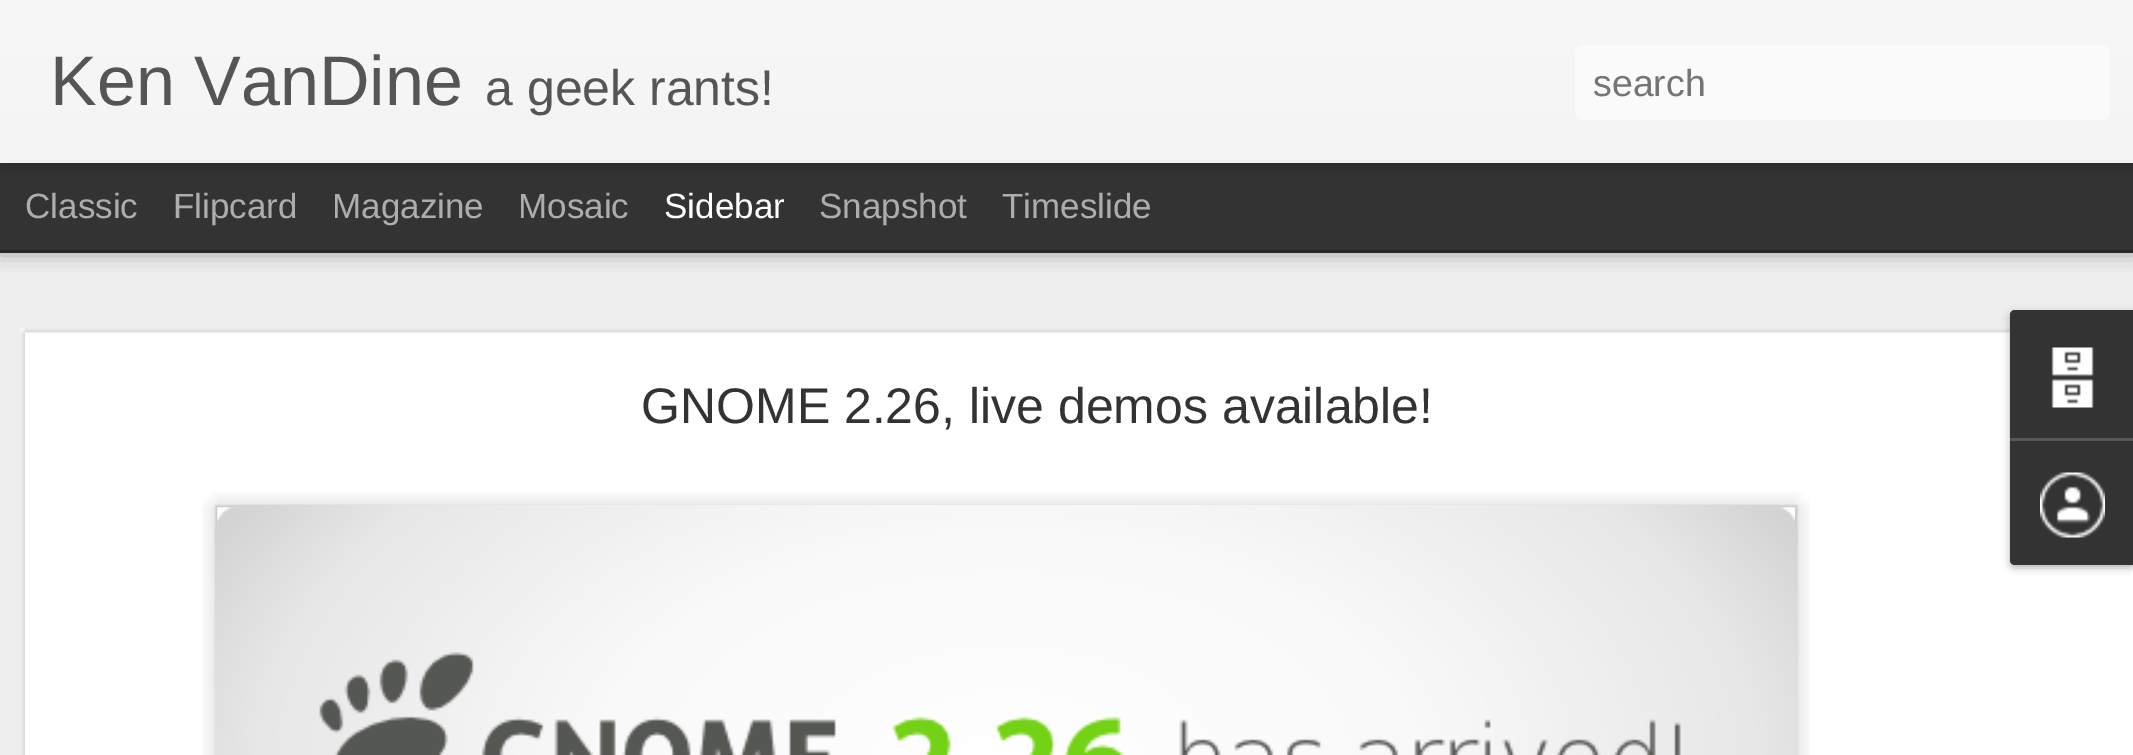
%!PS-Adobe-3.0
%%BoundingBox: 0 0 2133 755
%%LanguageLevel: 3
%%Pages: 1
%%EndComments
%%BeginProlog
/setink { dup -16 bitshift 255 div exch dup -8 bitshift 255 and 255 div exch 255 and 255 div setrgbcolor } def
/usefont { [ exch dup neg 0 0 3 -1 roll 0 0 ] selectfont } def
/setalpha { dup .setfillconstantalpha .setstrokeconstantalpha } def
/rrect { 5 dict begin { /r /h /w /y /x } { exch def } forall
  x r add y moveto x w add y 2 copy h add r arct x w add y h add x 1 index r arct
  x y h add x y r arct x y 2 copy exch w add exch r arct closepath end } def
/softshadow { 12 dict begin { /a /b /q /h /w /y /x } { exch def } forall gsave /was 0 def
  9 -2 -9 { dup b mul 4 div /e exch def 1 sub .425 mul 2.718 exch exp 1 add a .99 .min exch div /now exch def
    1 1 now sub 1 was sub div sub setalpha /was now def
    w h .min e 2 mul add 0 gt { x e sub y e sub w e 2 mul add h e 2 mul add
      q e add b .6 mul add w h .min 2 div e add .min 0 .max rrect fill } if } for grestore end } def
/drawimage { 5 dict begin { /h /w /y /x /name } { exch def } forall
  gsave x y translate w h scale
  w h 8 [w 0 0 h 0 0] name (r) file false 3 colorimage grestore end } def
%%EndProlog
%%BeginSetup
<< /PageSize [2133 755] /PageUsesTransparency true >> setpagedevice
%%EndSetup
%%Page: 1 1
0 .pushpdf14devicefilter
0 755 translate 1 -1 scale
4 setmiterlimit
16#333333 setink
0 0 2133 755 rectfill
16#EEEEEE setink
0 253 2133 502 rectfill
16#000000 setink
0 163 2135 87 0 10 0.5 softshadow
16#333333 setink
0 163 2133 87 rectfill
16#000000 setink
0 0 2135 163 0 6 0.3 softshadow
gsave 0 0 moveto 2133 0 lineto 2133 163 lineto 0 163 lineto closepath clip newpath
<< /ShadingType 2 /ColorSpace /DeviceRGB /Coords [0 0 0 163] /Extend [true true] /Function << /FunctionType 2 /Domain [0 1] /C0 [0.969 0.969 0.969] /C1 [0.957 0.957 0.957] /N 1 >> >> shfill grestore
/LiberationSans-Regular 70 usefont
16#555555 setink
50 105 moveto (Ken VanDine) show
/LiberationSans-Regular 50 usefont
485 105 moveto (a geek rants!) show
16#FAFAFA setink
1575 45 535 75 8 rrect fill
/LiberationSans-Regular 37.5 usefont
16#757575 setink
1593 96 moveto (search) show
/LiberationSans-Regular 35 usefont
16#ADADAD setink
[
    [(Classic) 25 218]
    [(Flipcard) 173 218]
    [(Magazine) 332 218]
    [(Mosaic) 518 218]
] { aload pop moveto show } forall
16#FFFFFF setink
664 218 moveto (Sidebar) show
16#ADADAD setink
819 218 moveto (Snapshot) show
1002 218 moveto (Timeslide) show
16#FFFFFF setink
20 328 2113 427 rectfill
(img1.raw) 20 328 1990 427 drawimage
/LiberationSans-Regular 50 usefont
16#333333 setink
641 423 moveto (GNOME 2.26, live demos available!) show
(img2.raw) 202 492 1608 263 drawimage
(img3.raw) 214 504 1581 251 drawimage
16#000000 setink
2010 313 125 255 5 4 0.3 softshadow
16#333333 setink
2015 310 moveto 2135 310 lineto 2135 438 lineto 2010 438 lineto 2010 315 lineto 2010 312 2012 310 2015 310 curveto closepath fill
(img4.raw) 2051 347 43 61 drawimage
2010 438 moveto 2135 438 lineto 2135 565 lineto 2015 565 lineto 2012 565 2010 563 2010 560 curveto closepath fill
16#585858 setink
2010 438 123 3 rectfill
(img5.raw) 2040 472 65 66 drawimage
.poppdf14devicefilter showpage
%%EOF
